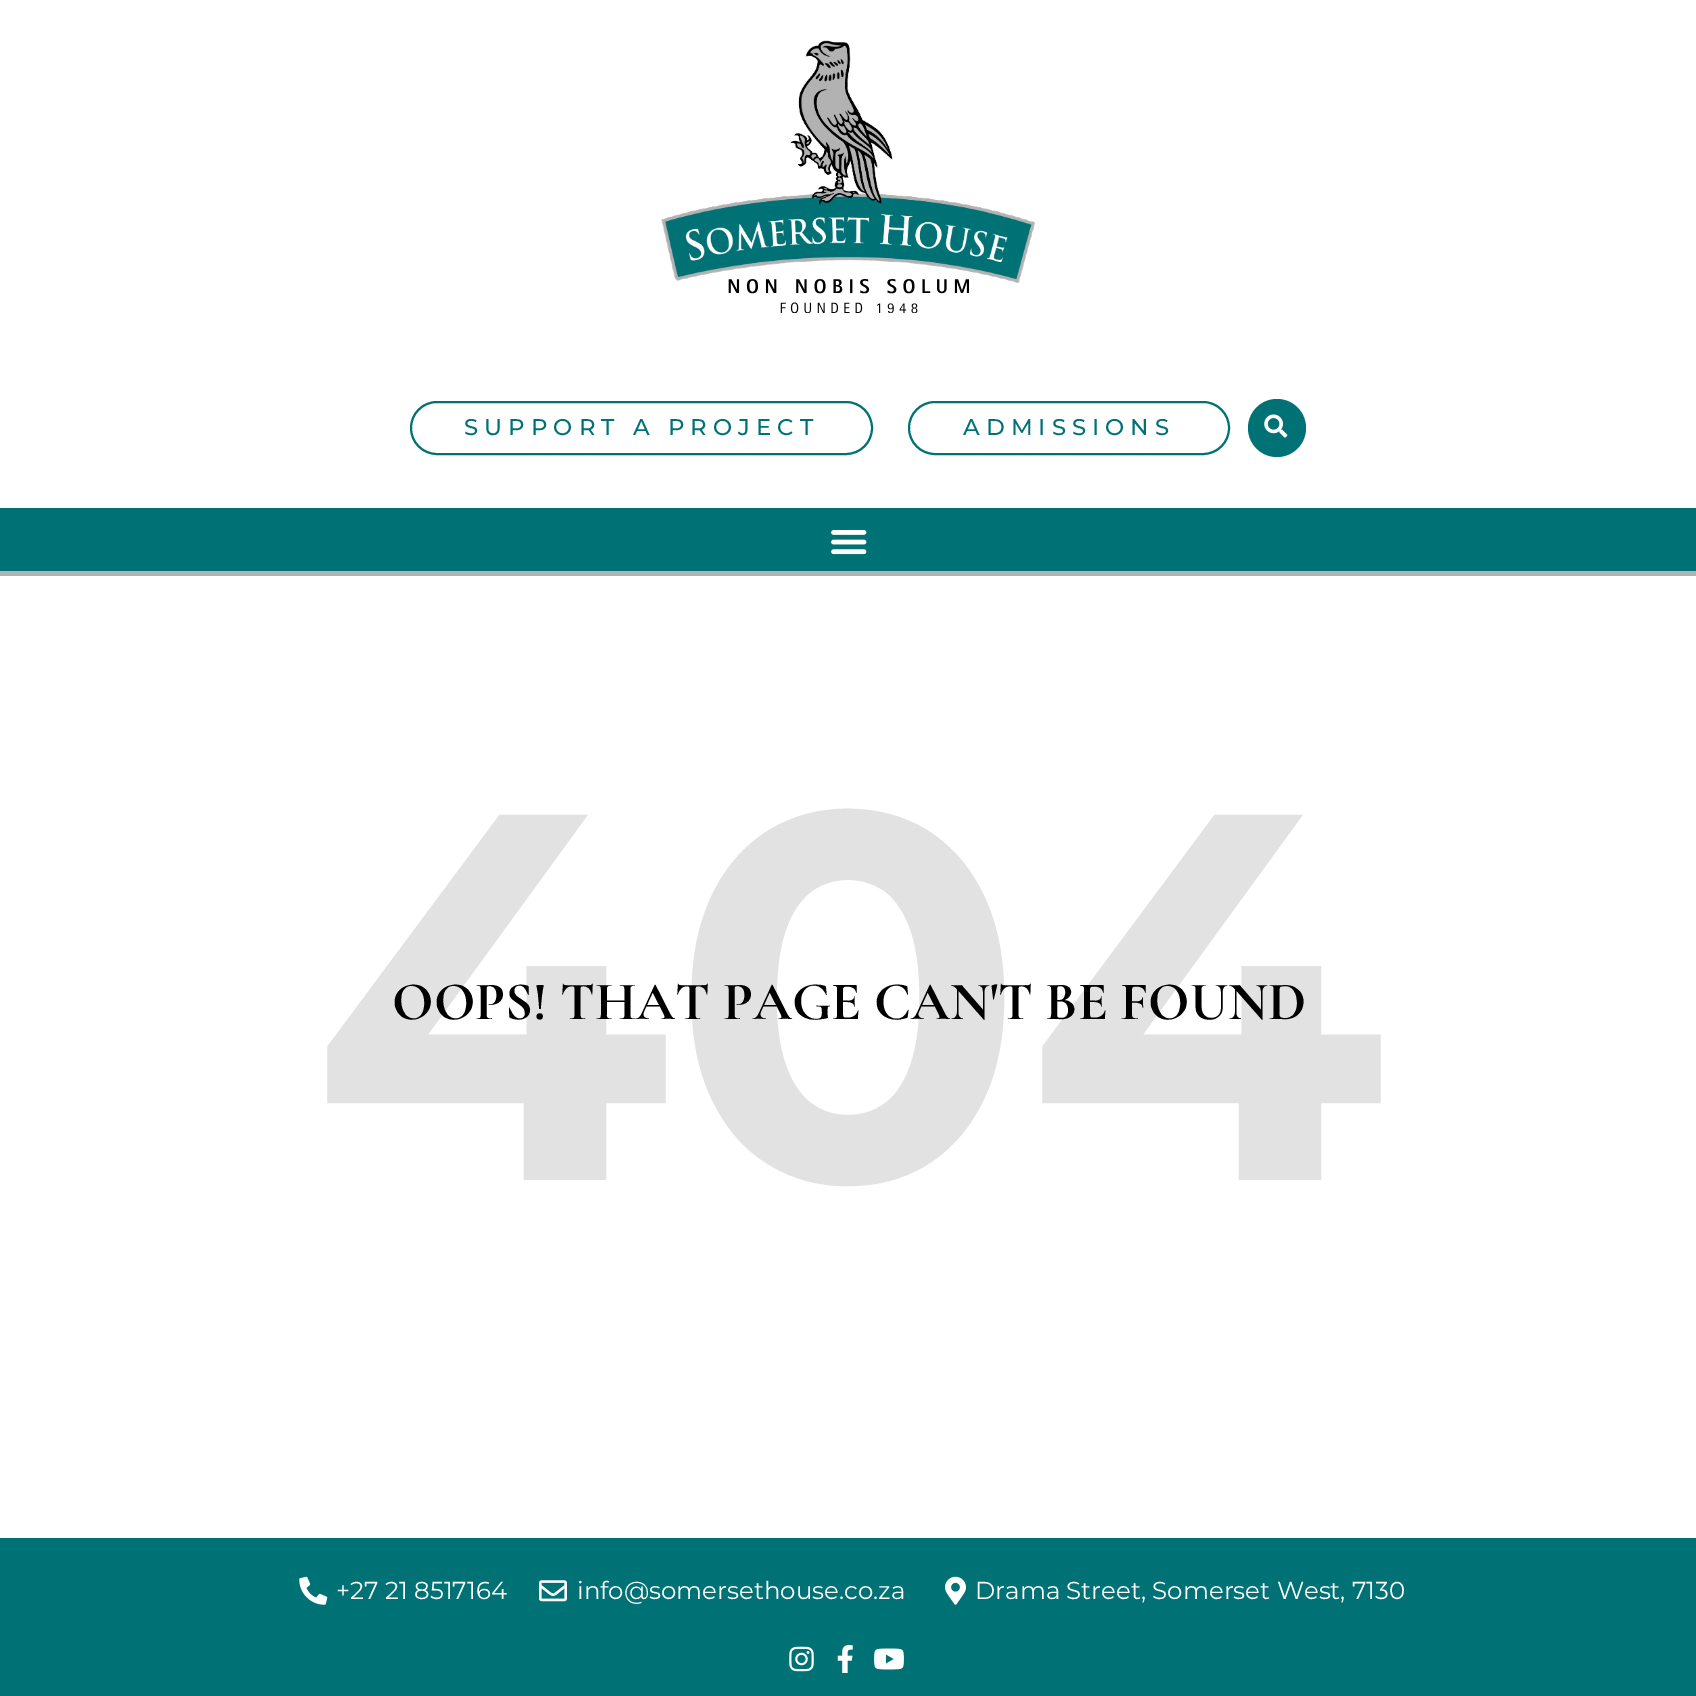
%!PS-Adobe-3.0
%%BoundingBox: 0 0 1696 1696
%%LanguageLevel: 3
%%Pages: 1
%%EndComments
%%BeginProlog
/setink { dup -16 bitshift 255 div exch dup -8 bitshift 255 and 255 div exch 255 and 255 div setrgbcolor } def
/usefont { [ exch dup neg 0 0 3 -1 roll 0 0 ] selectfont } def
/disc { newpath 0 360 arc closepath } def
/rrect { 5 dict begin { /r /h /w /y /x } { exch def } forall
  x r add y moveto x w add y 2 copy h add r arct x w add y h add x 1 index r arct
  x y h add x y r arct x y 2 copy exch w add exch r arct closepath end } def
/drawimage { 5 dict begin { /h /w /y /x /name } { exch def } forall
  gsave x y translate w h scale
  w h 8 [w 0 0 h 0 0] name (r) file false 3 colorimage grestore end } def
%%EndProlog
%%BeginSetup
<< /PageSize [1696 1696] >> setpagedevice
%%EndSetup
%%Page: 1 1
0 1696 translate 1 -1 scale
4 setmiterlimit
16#FFFFFF setink
0 0 1696 1696 rectfill
(img1.raw) 661 40 374 273 drawimage
16#007175 setink
2 setlinewidth
411 402 461 52 26 rrect stroke
/Montserrat-Medium 22.75 usefont
464 435 moveto 6.1 0 (SUPPORT A PROJECT) ashow
909 402 320 52 26 rrect stroke
963 435 moveto 6.1 0 (ADMISSIONS) ashow
1277 428 29 disc fill
(img2.raw) 1264 414 24 24 drawimage
0 508 1696 63 rectfill
16#B2B2B2 setink
0 571 1696 5 rectfill
(img3.raw) 831 530 36 25 drawimage
/Montserrat-Bold 523 usefont
16#E2E2E2 setink
311 1180 moveto (404) show
/CormorantGaramond-Bold 54.25 usefont
16#000000 setink
392 1019 moveto (OOPS! THAT PAGE CAN'T BE FOUND) show
16#007175 setink
0 1538 1696 158 rectfill
(img4.raw) 299 1576 29 29 drawimage
/Montserrat-Regular 24.5 usefont
16#FFFFFF setink
336 1599 moveto (+27 21 8517164) show
(img5.raw) 539 1580 28 22 drawimage
577 1599 moveto (info@somersethouse.co.za) show
(img6.raw) 945 1576 21 29 drawimage
975 1599 moveto (Drama Street, Somerset West, 7130) show
(img7.raw) 789 1646 25 26 drawimage
(img8.raw) 837 1645 16 28 drawimage
(img9.raw) 874 1648 30 22 drawimage
showpage
%%EOF
